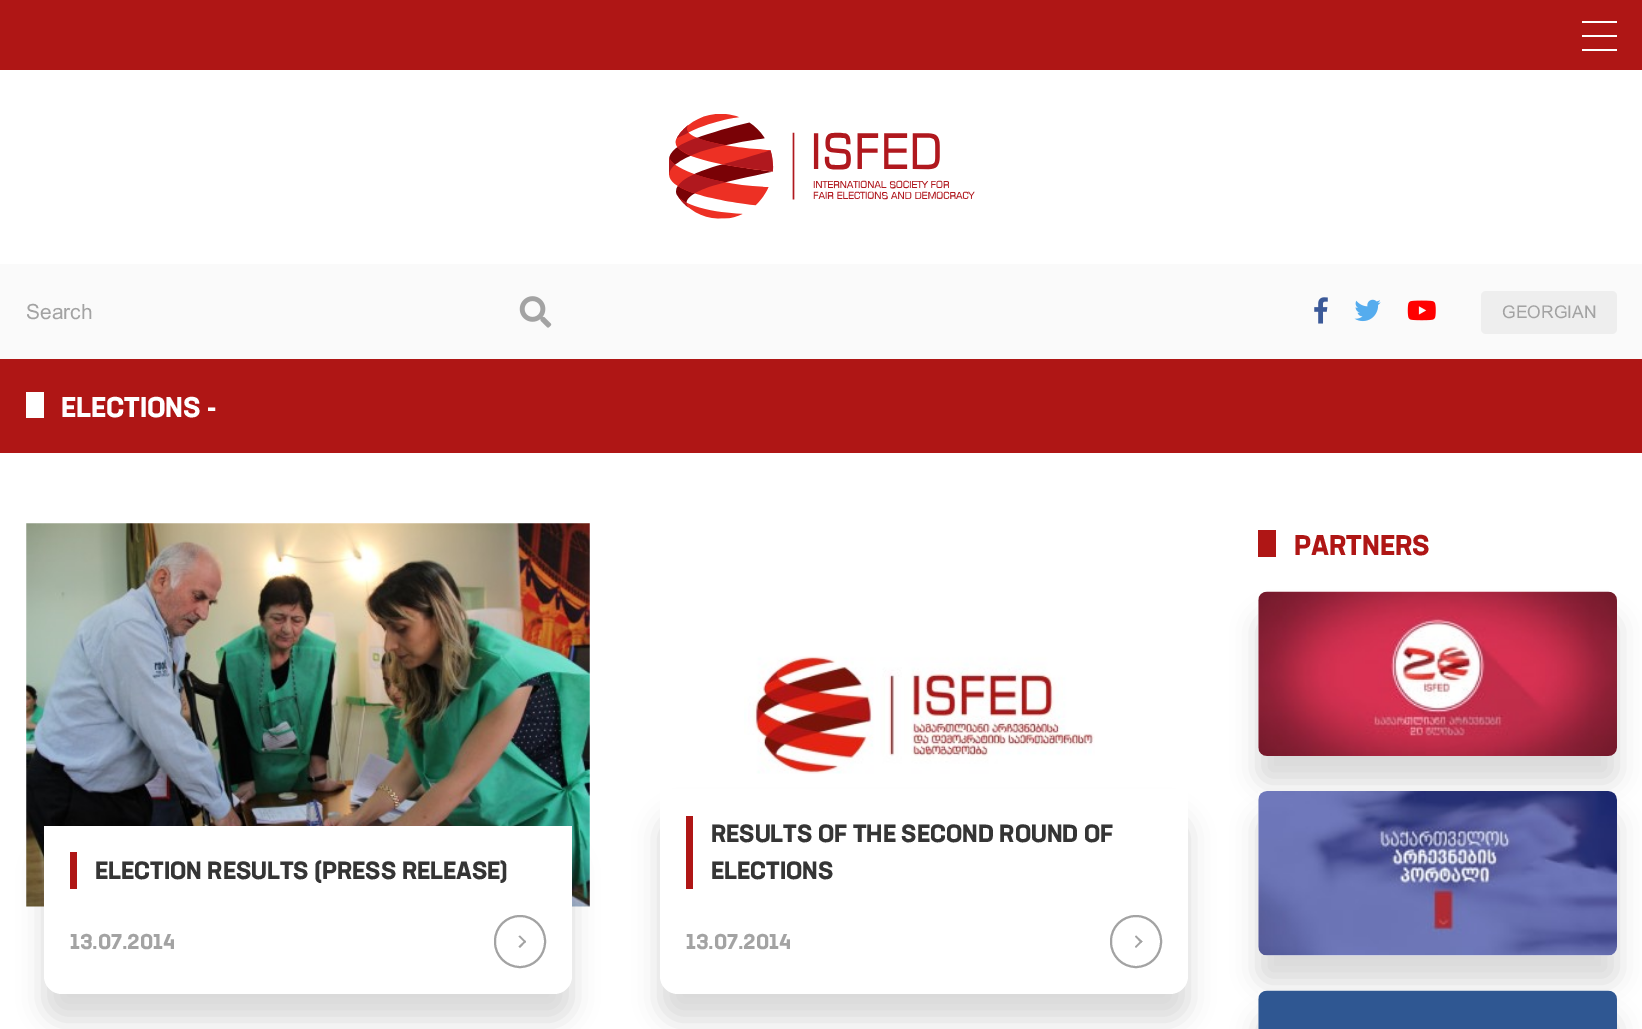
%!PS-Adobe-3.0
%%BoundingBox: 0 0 1642 1029
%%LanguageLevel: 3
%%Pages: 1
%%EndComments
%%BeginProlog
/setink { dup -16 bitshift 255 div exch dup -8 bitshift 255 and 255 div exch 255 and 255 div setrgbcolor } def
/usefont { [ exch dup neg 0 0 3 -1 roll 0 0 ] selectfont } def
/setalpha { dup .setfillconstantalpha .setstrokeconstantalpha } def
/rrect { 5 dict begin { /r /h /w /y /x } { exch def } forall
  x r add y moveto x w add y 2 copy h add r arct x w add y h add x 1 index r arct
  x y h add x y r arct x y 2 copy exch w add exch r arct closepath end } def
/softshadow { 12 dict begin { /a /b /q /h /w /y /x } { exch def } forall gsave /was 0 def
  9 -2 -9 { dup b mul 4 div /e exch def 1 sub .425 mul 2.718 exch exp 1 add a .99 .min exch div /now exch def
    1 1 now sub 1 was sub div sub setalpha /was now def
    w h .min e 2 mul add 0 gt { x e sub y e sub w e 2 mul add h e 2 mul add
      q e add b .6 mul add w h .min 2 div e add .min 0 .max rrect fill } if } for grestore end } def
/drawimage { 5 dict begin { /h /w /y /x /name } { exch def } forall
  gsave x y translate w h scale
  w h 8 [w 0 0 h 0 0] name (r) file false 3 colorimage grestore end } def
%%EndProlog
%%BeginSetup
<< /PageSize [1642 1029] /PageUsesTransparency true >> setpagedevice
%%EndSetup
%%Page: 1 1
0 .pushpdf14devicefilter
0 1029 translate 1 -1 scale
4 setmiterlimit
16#FFFFFF setink
0 0 1642 1029 rectfill
[
    [0 0 1642 70 16#AF1615]
    [1582 21 35 2 16#FFFFFF]
    [1582 35 35 2 16#FFFFFF]
    [1582 49 35 2 16#FFFFFF]
] { aload pop setink rectfill } forall
(img1.raw) 669 114 306 105 drawimage
16#FAFAFA setink
0 264 1642 95 rectfill
/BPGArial-Regular 21 usefont
16#A3A3A3 setink
26 319 moveto (Search) show
(img2.raw) 519 296 33 32 drawimage
(img3.raw) 1314 297 14 27 drawimage
(img4.raw) 1354 299 27 23 drawimage
(img5.raw) 1407 300 29 21 drawimage
16#EEEEEE setink
1481 291 136 43 5 rrect fill
/BPGArial-Regular 17.5 usefont
16#A3A3A3 setink
1502 318 moveto (GEORGIAN) show
16#AF1615 setink
0 359 1642 94 rectfill
16#FFFFFF setink
26 392 18 26 rectfill
/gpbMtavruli-Bold 28 usefont
61 417 moveto (ELECTIONS -) show
16#AF1615 setink
1258 530 18 27 rectfill
1294 555 moveto (PARTNERS) show
16#000000 setink
1258 618 359 164 9 13 0.15 softshadow
(img6.raw) 1258 591 359 165 drawimage
1258 817 359 165 9 13 0.15 softshadow
(img7.raw) 1258 791 359 165 drawimage
1258 1017 359 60 9 13 0.15 softshadow
(img8.raw) 1258 990 359 39 drawimage
(img9.raw) 26 523 564 384 drawimage
44 852 528 168 18 13 0.15 softshadow
16#FFFFFF setink
44 826 moveto 572 826 lineto 572 976 lineto 572 986 564 994 554 994 curveto 62 994 lineto 52 994 44 986 44 976 curveto closepath fill
16#AF1615 setink
70 852 7 37 rectfill
/gpbMtavruli-Bold 24.5 usefont
16#353535 setink
95 879 moveto (ELECTION RESULTS \(PRESS RELEASE\)) show
/gpbMtavruli-Bold 21 usefont
16#A3A3A3 setink
70 949 moveto (13.07.2014) show
2 setlinewidth
495 916 50 51 25 rrect stroke
518.5 936.5 moveto 520 935.5 lineto 526 941.5 lineto 525 943 lineto closepath fill
518.5 946.5 moveto 525 940.5 lineto 526 941.5 lineto 520 948 lineto closepath fill
(img10.raw) 744 656 351 118 drawimage
16#000000 setink
660 816 528 204 18 13 0.15 softshadow
16#FFFFFF setink
660 789 moveto 1188 789 lineto 1188 976 lineto 1188 986 1180 994 1170 994 curveto 678 994 lineto 668 994 660 986 660 976 curveto closepath fill
16#AF1615 setink
686 816 7 73 rectfill
/gpbMtavruli-Bold 24.5 usefont
16#353535 setink
711 842 moveto (RESULTS OF THE SECOND ROUND OF) show
711 879 moveto (ELECTIONS) show
/gpbMtavruli-Bold 21 usefont
16#A3A3A3 setink
686 949 moveto (13.07.2014) show
1111 916 50 51 25 rrect stroke
1135 936.5 moveto 1136 935.5 lineto 1142.5 941.5 lineto 1141 943 lineto closepath fill
1135 946.5 moveto 1141 940.5 lineto 1142.5 941.5 lineto 1136 948 lineto closepath fill
.poppdf14devicefilter showpage
%%EOF
